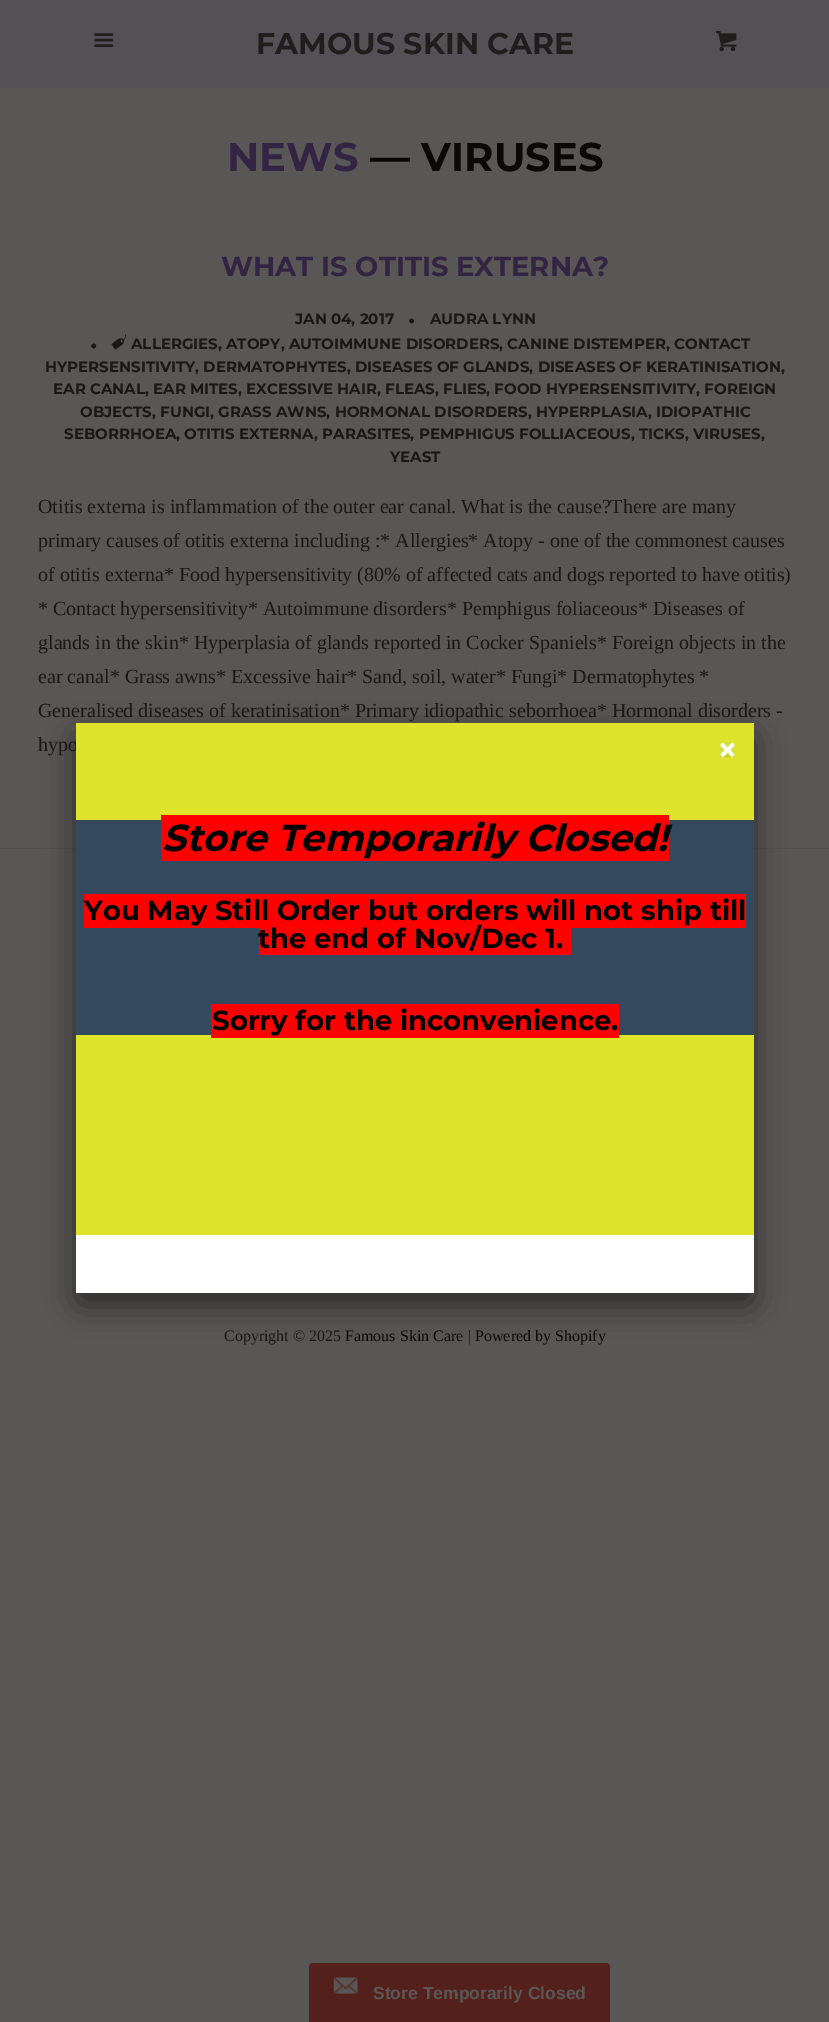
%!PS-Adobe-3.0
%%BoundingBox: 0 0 829 2022
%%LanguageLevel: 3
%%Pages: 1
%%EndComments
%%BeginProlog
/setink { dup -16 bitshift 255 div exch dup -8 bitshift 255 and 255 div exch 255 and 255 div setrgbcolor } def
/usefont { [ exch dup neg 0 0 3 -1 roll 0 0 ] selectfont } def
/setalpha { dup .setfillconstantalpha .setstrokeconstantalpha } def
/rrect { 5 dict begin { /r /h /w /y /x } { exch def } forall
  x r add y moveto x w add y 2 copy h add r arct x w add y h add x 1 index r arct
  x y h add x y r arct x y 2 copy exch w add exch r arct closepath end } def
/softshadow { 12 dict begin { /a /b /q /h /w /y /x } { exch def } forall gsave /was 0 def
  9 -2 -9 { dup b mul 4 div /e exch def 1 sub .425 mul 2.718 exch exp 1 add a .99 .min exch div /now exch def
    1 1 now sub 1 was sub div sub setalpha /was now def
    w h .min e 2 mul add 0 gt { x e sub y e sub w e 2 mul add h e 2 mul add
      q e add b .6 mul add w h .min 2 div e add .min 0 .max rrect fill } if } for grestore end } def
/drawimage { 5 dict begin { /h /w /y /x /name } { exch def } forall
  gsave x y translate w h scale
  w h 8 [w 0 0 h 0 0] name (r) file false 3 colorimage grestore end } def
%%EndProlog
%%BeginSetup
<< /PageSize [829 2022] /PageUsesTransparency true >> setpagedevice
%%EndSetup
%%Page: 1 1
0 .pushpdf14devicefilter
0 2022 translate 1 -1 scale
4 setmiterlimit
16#595656 setink
0 0 829 2022 rectfill
16#545055 setink
0 0 829 88 rectfill
16#535050 setink
0 86 829 1 rectfill
(img1.raw) 94 33 20 14 drawimage
/Montserrat-Thin 30 usefont
16#201D1D setink
256 54 moveto (FAMOUS SKIN CARE) show
(img2.raw) 716 31 21 21 drawimage
/Montserrat-Thin 40 usefont
16#322442 setink
227 171 moveto (NEWS) show
16#0B0808 setink
370 171 moveto (— VIRUSES) show
/Montserrat-Thin 27.5 usefont
16#322442 setink
221 276 moveto (WHAT IS OTITIS EXTERNA?) show
/Montserrat-Thin 15 usefont
16#1B1717 setink
295 324 moveto (JAN 04, 2017) show
/Montserrat-Thin 25 usefont
408 328 moveto (·) show
/Montserrat-Thin 15 usefont
430 324 moveto (AUDRA LYNN) show
(img3.raw) 111 334 15 16 drawimage
[
    [(ALLERGIES, ATOPY, AUTOIMMUNE DISORDERS, CANINE DISTEMPER, CONTACT) 131 349]
    [(HYPERSENSITIVITY, DERMATOPHYTES, DISEASES OF GLANDS, DISEASES OF KERATINISATION,) 45 372]
    [(EAR CANAL, EAR MITES, EXCESSIVE HAIR, FLEAS, FLIES, FOOD HYPERSENSITIVITY, FOREIGN) 53 394]
    [(OBJECTS, FUNGI, GRASS AWNS, HORMONAL DISORDERS, HYPERPLASIA, IDIOPATHIC) 80 417]
    [(SEBORRHOEA, OTITIS EXTERNA, PARASITES, PEMPHIGUS FOLLIACEOUS, TICKS, VIRUSES,) 64 439]
    [(YEAST) 390 462]
] { aload pop moveto show } forall
/Montserrat-Thin 25 usefont
90 353 moveto (·) show
/LiberationSerif-Regular 20 usefont
[
    [(Otitis externa is inflammation of the outer ear canal. What is the cause?There are many) 38 513]
    [(primary causes of otitis externa including :* Allergies* Atopy - one of the commonest causes) 38 547]
    [(of otitis externa* Food hypersensitivity \(80% of affected cats and dogs reported to have otitis\)) 38 581]
    [(* Contact hypersensitivity* Autoimmune disorders* Pemphigus foliaceous* Diseases of) 38 615]
    [(glands in the skin* Hyperplasia of glands reported in Cocker Spaniels* Foreign objects in the) 38 649]
    [(ear canal* Grass awns* Excessive hair* Sand, soil, water* Fungi* Dermatophytes *) 38 683]
    [(Generalised diseases of keratinisation* Primary idiopathic seborrhoea* Hormonal disorders -) 38 717]
    [(hypo) 38 751]
] { aload pop moveto show } forall
16#535050 setink
0 848 829 1 rectfill
/LiberationSerif-Regular 16 usefont
16#1B1717 setink
224 1341 moveto (Copyright © 2025) show
16#0B0808 setink
345 1341 moveto (Famous Skin Care) show
16#1B1717 setink
468 1341 moveto (|) show
16#0B0808 setink
475 1341 moveto (Powered by Shopify) show
16#000000 setink
76 735 678 570 5 15.5 0.5 softshadow
16#DFE32B setink
76 723 678 97 rectfill
(img4.raw) 720 742 15 16 drawimage
[
    [76 1235 678 58 16#FFFFFF]
    [76 820 678 215 16#34495E]
    [161 815 508 46 16#FF0000]
] { aload pop setink rectfill } forall
/Montserrat-ThinItalic 37.5 usefont
16#000000 setink
162 851 moveto (Store Temporarily Closed!) show
16#FF0000 setink
84 894 662 34 rectfill
/Montserrat-Thin 27.5 usefont
16#000000 setink
84 920 moveto (You May Still Order but orders will not ship till) show
16#FF0000 setink
259 928 312 27 rectfill
16#000000 setink
258 948 moveto (the end of Nov/Dec 1.) show
16#DFE32B setink
76 1035 678 200 rectfill
16#FF0000 setink
211 1004 408 34 rectfill
16#000000 setink
212 1030 moveto (Sorry for the inconvenience.) show
16#53201B setink
313 1963 moveto 606 1963 lineto 608 1963 610 1965 610 1967 curveto 610 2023 lineto 309 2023 lineto 309 1967 lineto 309 1965 311 1963 313 1963 curveto closepath fill
(img5.raw) 333 1977 25 17 drawimage
/LiberationSans-Bold 17.5 usefont
16#5A5757 setink
373 1999 moveto (Store Temporarily Closed) show
.poppdf14devicefilter showpage
%%EOF
